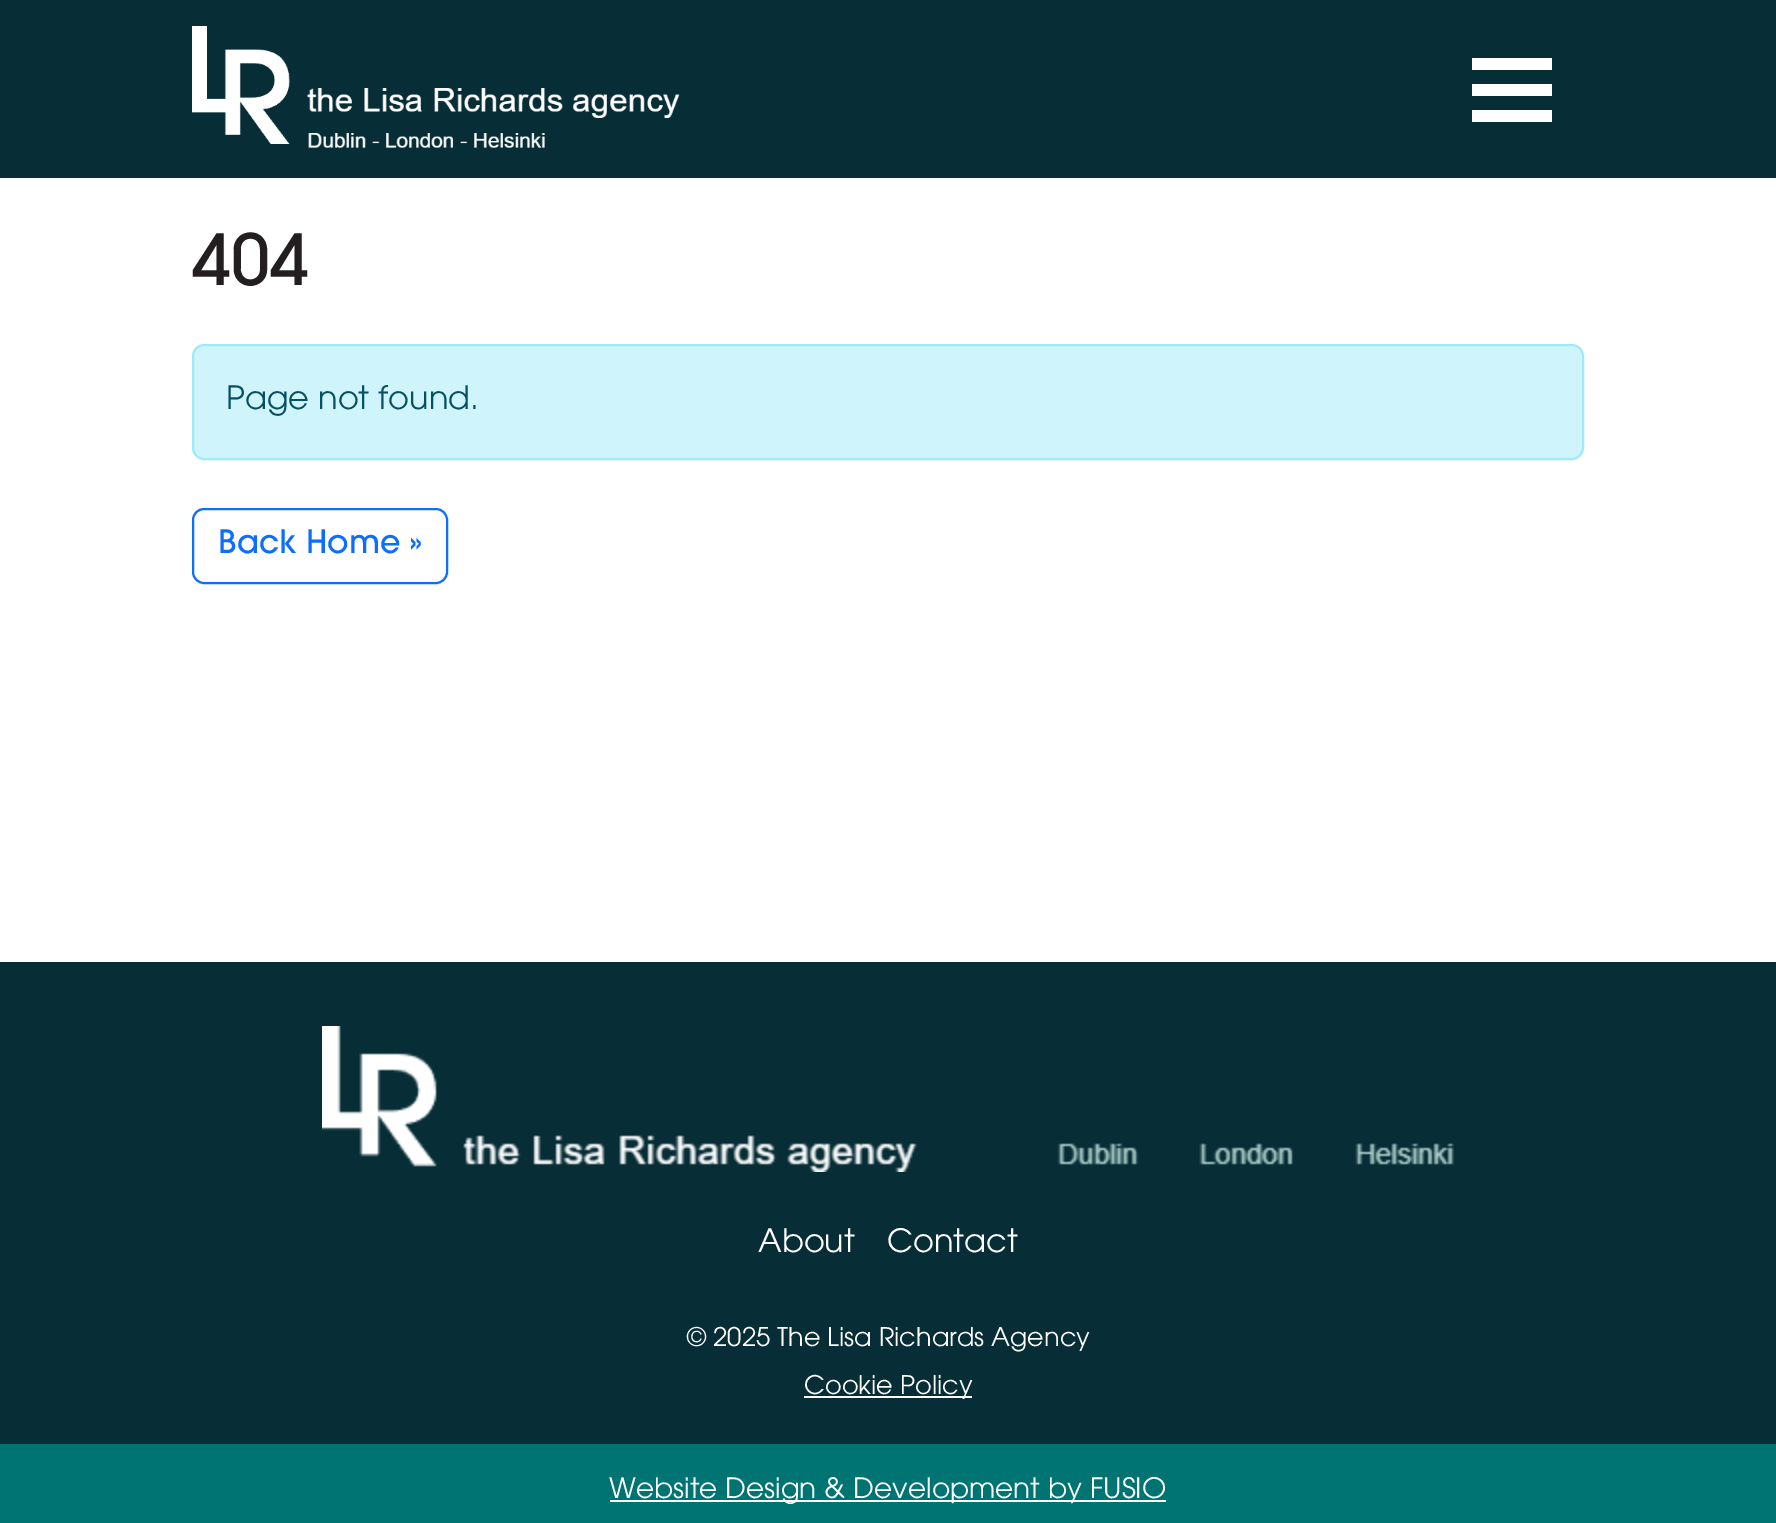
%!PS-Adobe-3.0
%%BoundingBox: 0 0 1776 1523
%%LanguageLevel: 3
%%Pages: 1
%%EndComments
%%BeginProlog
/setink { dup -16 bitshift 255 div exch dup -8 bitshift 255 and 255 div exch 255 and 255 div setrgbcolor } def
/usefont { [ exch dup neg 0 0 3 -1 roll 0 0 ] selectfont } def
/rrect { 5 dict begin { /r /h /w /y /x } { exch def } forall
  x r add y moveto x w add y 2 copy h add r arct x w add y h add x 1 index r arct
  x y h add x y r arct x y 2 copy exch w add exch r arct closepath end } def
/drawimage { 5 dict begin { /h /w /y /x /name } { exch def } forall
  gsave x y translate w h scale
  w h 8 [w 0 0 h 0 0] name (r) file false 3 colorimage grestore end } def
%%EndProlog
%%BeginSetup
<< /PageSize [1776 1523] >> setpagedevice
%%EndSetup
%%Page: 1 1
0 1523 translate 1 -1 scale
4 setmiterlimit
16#FFFFFF setink
0 0 1776 1523 rectfill
16#072D36 setink
0 0 1776 178 rectfill
(img1.raw) 192 26 488 122 drawimage
[
    [1472 58 80 12 16#FFFFFF]
    [1472 84 80 12 16#FFFFFF]
    [1472 110 80 12 16#FFFFFF]
] { aload pop setink rectfill } forall
/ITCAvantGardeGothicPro-Medium 70 usefont
16#231F20 setink
192 285 moveto (404) show
16#CFF4FC setink
193 345 1390 114 11 rrect gsave fill grestore
16#9EEAF9 setink
2 setlinewidth
stroke
/ITCAvantGardeGothicPro-Light 32 usefont
16#055160 setink
226 409 moveto (Page not found.) show
16#0D6EFD setink
193 509 254 74 11 rrect stroke
/ITCAvantGardeGothicPro-Medium 32 usefont
218 553 moveto (Back Home ») show
16#072D36 setink
0 962 1776 482 rectfill
(img2.raw) 322 1026 1132 146 drawimage
/ITCAvantGardeGothicPro-Light 32 usefont
16#FFFFFF setink
758 1252 moveto (About) show
887 1252 moveto (Contact) show
/ITCAvantGardeGothicPro-Light 25.6 usefont
687 1346 moveto (© 2025 The Lisa Richards Agency) show
804 1396 168 2 rectfill
804 1394 moveto (Cookie Policy) show
16#007373 setink
0 1444 1776 79 rectfill
16#FFFFFF setink
610 1500 556 2 rectfill
/ITCAvantGardeGothicPro-Light 28 usefont
609 1498 moveto (Website Design & Development by FUSIO) show
showpage
%%EOF
